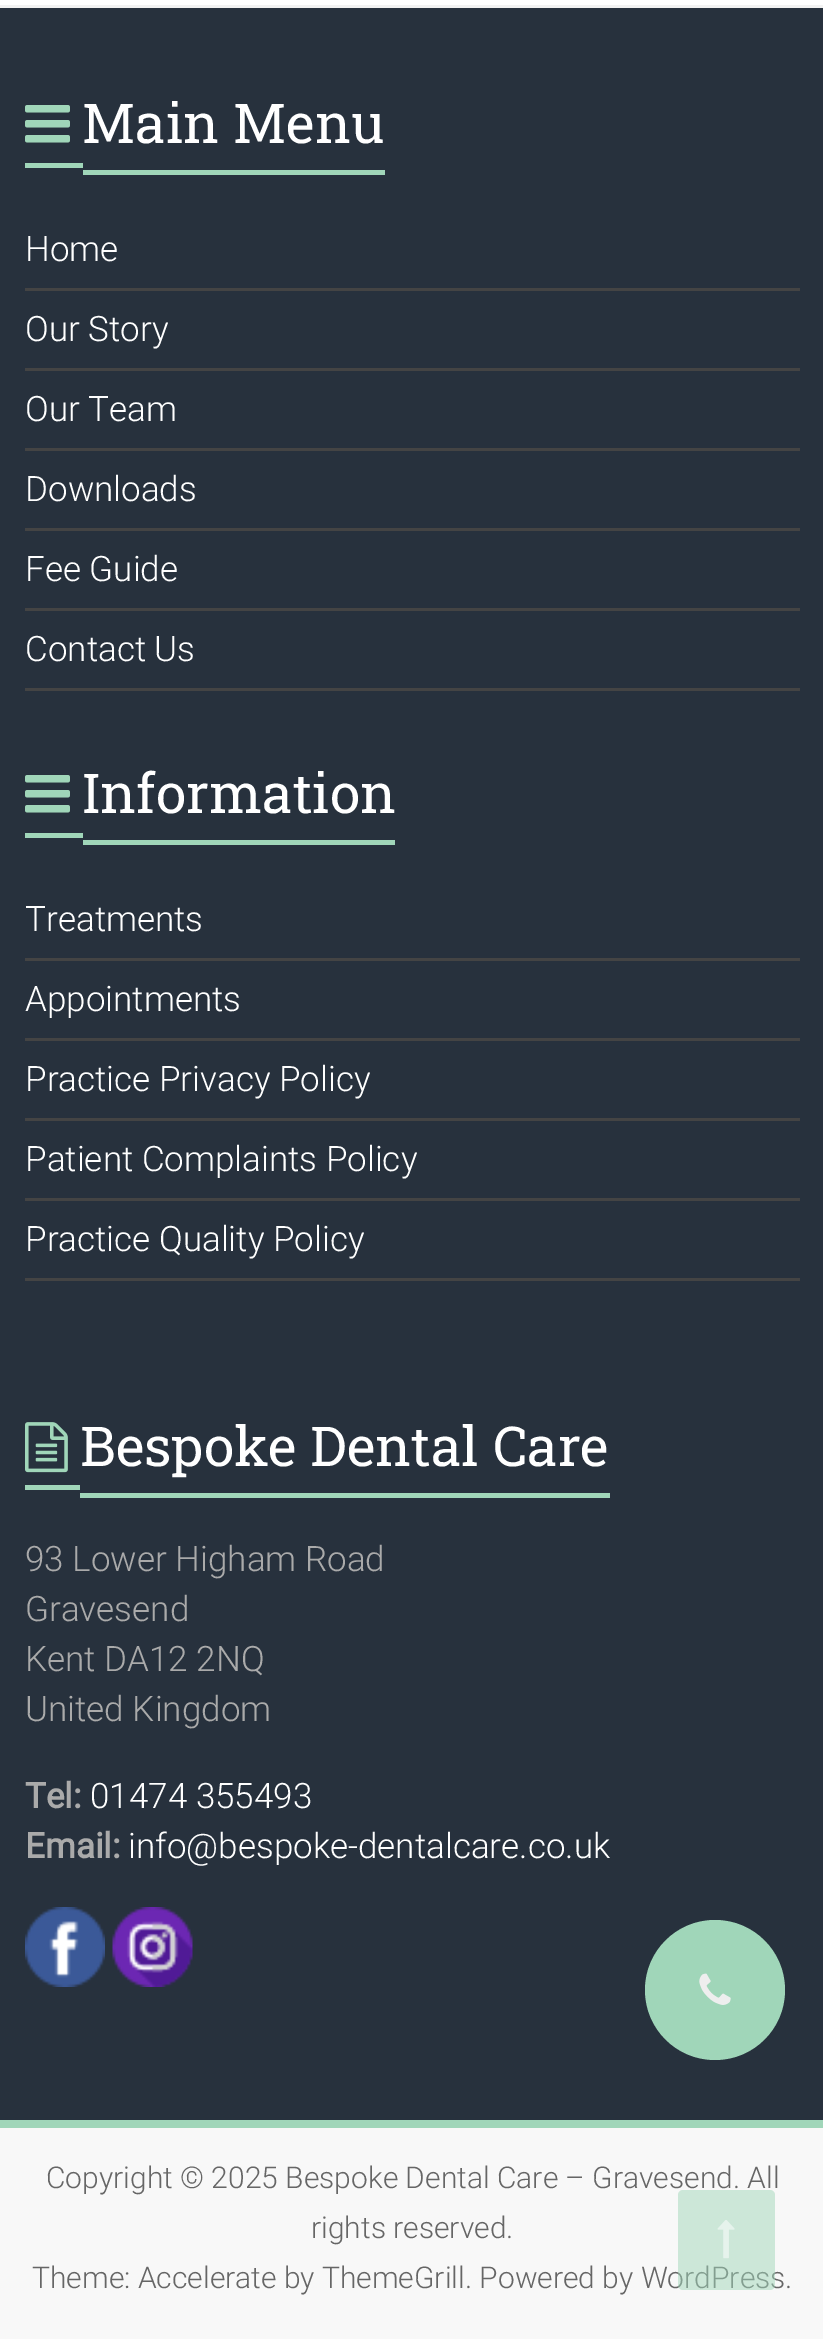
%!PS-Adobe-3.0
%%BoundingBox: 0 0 823 2339
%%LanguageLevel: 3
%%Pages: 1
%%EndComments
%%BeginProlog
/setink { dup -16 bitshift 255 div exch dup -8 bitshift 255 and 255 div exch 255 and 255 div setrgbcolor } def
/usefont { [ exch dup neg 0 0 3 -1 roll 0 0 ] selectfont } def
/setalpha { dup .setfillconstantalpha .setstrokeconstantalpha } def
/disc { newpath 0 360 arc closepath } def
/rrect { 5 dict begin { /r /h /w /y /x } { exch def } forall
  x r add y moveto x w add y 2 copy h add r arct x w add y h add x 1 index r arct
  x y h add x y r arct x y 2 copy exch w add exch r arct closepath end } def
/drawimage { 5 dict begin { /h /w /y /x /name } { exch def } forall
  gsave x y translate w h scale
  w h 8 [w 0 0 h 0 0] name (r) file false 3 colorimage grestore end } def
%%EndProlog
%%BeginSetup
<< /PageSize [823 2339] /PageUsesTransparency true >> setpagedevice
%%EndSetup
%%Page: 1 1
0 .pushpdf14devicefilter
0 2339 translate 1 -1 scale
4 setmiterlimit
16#FFFFFF setink
0 0 823 2339 rectfill
16#27313D setink
0 8 823 2112 rectfill
16#F2F2F2 setink
0 5 823 3 rectfill
(img1.raw) 25 105 45 38 drawimage
/RobotoSlab-Regular 55 usefont
16#FFFFFF setink
82 143 moveto (Main Menu) show
[
    [25 163 58 5 16#A0D6B9]
    [83 170 302 5 16#A0D6B9]
    [25 288 775 3 16#444444]
] { aload pop setink rectfill } forall
/Roboto-Light 35 usefont
16#FFFFFF setink
25 261 moveto (Home) show
16#444444 setink
25 368 775 3 rectfill
16#FFFFFF setink
25 341 moveto (Our Story) show
16#444444 setink
25 448 775 3 rectfill
16#FFFFFF setink
25 421 moveto (Our Team) show
16#444444 setink
25 528 775 3 rectfill
16#FFFFFF setink
25 501 moveto (Downloads) show
16#444444 setink
25 608 775 3 rectfill
16#FFFFFF setink
25 581 moveto (Fee Guide) show
16#444444 setink
25 688 775 3 rectfill
16#FFFFFF setink
25 661 moveto (Contact Us) show
(img1.raw) 25 775 45 38 drawimage
/RobotoSlab-Regular 55 usefont
82 813 moveto (Information) show
[
    [25 833 58 5 16#A0D6B9]
    [83 840 312 5 16#A0D6B9]
    [25 958 775 3 16#444444]
] { aload pop setink rectfill } forall
/Roboto-Light 35 usefont
16#FFFFFF setink
25 931 moveto (Treatments) show
16#444444 setink
25 1038 775 3 rectfill
16#FFFFFF setink
25 1011 moveto (Appointments) show
16#444444 setink
25 1118 775 3 rectfill
16#FFFFFF setink
25 1091 moveto (Practice Privacy Policy) show
16#444444 setink
25 1198 775 3 rectfill
16#FFFFFF setink
25 1171 moveto (Patient Complaints Policy) show
16#444444 setink
25 1278 775 3 rectfill
16#FFFFFF setink
25 1251 moveto (Practice Quality Policy) show
(img2.raw) 25 1422 43 51 drawimage
/RobotoSlab-Regular 55 usefont
80 1466 moveto (Bespoke Dental Care) show
16#A0D6B9 setink
25 1485 55 5 rectfill
80 1493 530 5 rectfill
/Roboto-Light 35 usefont
16#AAAAAA setink
[
    [(93 Lower Higham Road) 25 1571]
    [(Gravesend) 25 1621]
    [(Kent DA12 2NQ) 25 1671]
    [(United Kingdom) 25 1721]
] { aload pop moveto show } forall
/Roboto-Bold 35 usefont
25 1808 moveto (Tel:) show
/Roboto-Light 35 usefont
16#FFFFFF setink
90 1808 moveto (01474 355493) show
/Roboto-Bold 35 usefont
16#AAAAAA setink
25 1858 moveto (Email:) show
/Roboto-Light 35 usefont
16#FFFFFF setink
128 1858 moveto (info@bespoke-dentalcare.co.uk) show
(img3.raw) 25 1907 80 80 drawimage
(img4.raw) 112 1907 81 80 drawimage
16#F8F8F8 setink
0 2128 823 211 rectfill
16#A0D6B9 setink
0 2120 823 8 rectfill
/Roboto-Light 30 usefont
16#666666 setink
[
    [(Copyright © 2025 Bespoke Dental Care – Gravesend. All) 46 2188]
    [(rights reserved.) 311 2238]
    [(Theme: Accelerate by ThemeGrill. Powered by WordPress.) 32 2288]
] { aload pop moveto show } forall
0.5 setalpha
16#A0D6B9 setink
678 2190 97 100 5 rrect fill
1 setalpha
(img5.raw) 717 2220 18 39 drawimage
715 1990 70 disc fill
(img6.raw) 699 1973 32 32 drawimage
.poppdf14devicefilter showpage
%%EOF
